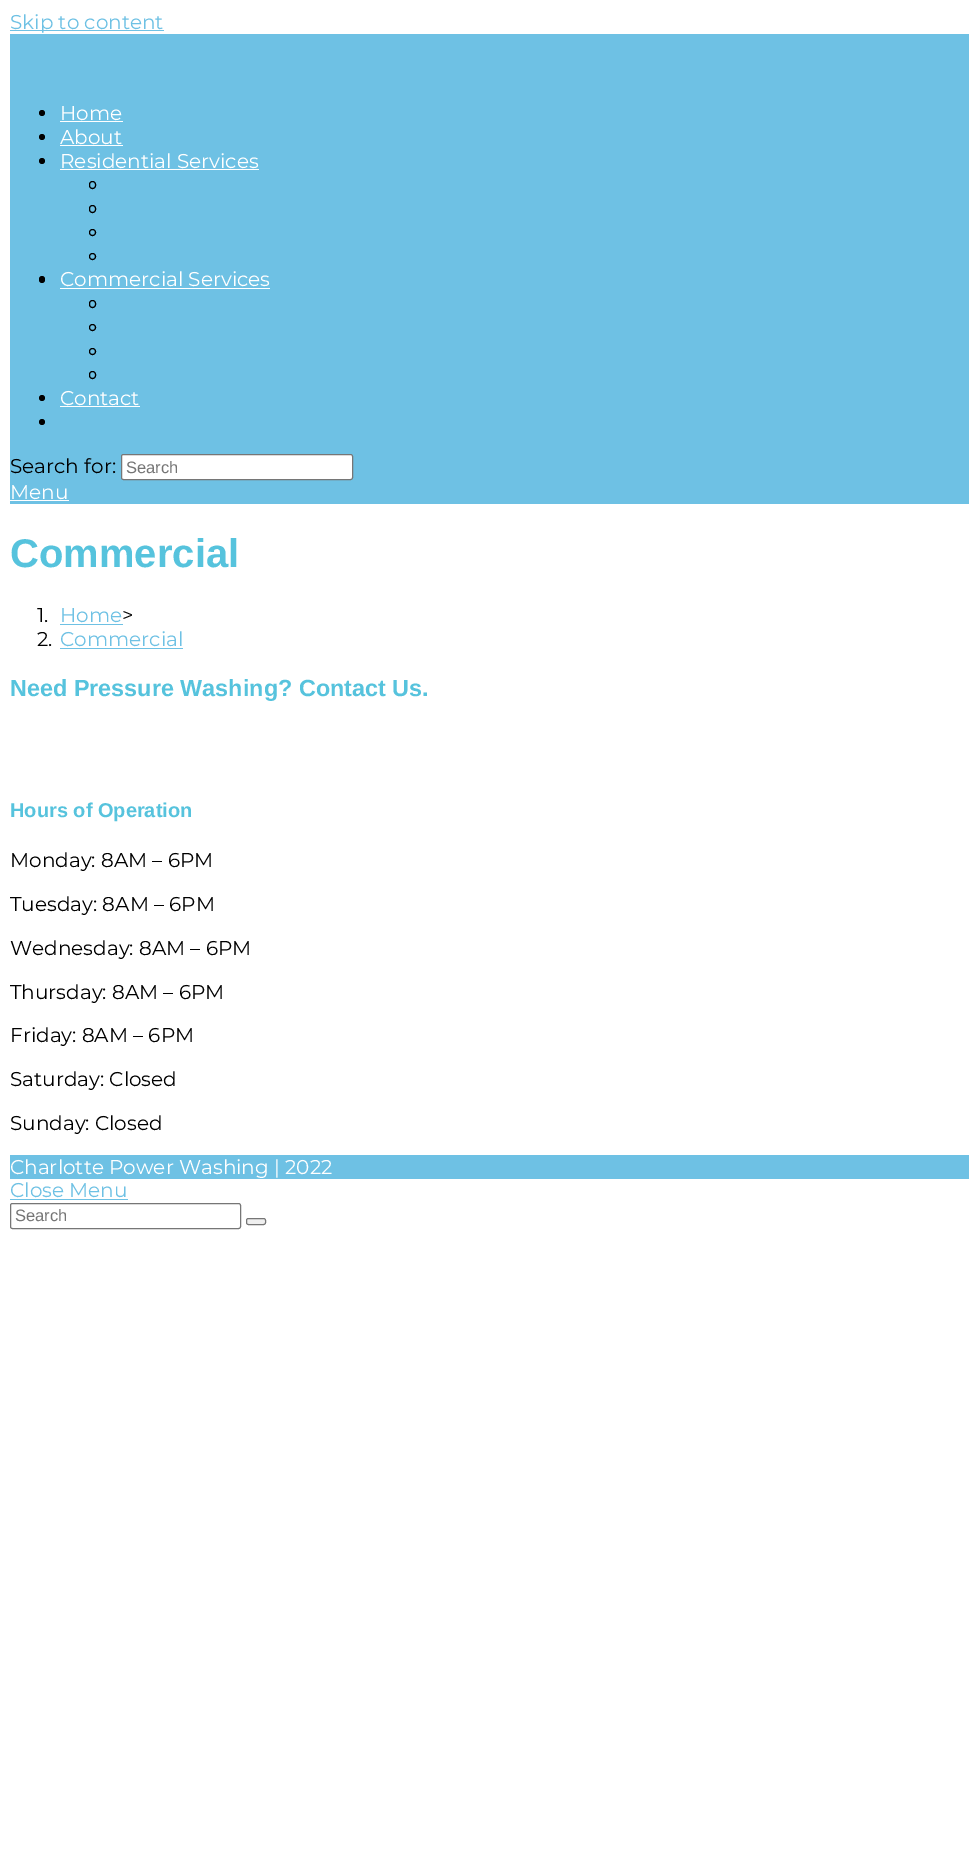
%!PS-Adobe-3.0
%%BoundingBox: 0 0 978 1857
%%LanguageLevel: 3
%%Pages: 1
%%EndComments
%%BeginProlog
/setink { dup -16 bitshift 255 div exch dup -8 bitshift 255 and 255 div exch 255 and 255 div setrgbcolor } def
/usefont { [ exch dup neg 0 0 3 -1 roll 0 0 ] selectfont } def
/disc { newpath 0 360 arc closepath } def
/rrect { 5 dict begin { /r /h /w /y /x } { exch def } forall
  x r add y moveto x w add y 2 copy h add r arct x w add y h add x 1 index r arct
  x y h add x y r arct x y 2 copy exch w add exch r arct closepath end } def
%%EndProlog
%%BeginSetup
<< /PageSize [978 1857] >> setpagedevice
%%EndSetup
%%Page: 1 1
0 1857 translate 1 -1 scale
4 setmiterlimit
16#FFFFFF setink
0 0 978 1857 rectfill
16#6EC1E4 setink
10 30 154 1 rectfill
/Montserrat-Regular 20 usefont
10 29 moveto (Skip to content) show
10 34 959 470 rectfill
16#000000 setink
42 113 3 disc fill
16#FFFFFF setink
60 120 moveto (Home) show
60 121 63 1 rectfill
16#000000 setink
42 137 3 disc fill
16#FFFFFF setink
60 144 moveto (About) show
60 145 63 1 rectfill
16#000000 setink
42 161 3 disc fill
16#FFFFFF setink
60 168 moveto (Residential Services) show
60 169 199 1 rectfill
16#000000 setink
89.5 181.5 6 7 3 rrect stroke
89.5 205.5 6 7 3 rrect stroke
92.5 232.5 3 disc stroke
92.5 256.5 3 disc stroke
39 276 6 7 3 rrect fill
16#FFFFFF setink
60 286 moveto (Commercial Services) show
60 288 210 1 rectfill
16#000000 setink
89.5 300.5 6 7 3 rrect stroke
92.5 327.5 3 disc stroke
92.5 351.5 3 disc stroke
89.5 371.5 6 7 3 rrect stroke
42 398 3 disc fill
16#FFFFFF setink
60 405 moveto (Contact) show
60 406 80 1 rectfill
16#000000 setink
42 422 3 disc fill
10 473 moveto (Search for:) show
16#FFFFFF setink
121.5 454.5 231 25 2 rrect gsave fill grestore
16#767676 setink
stroke
/LiberationSans-Regular 16.5 usefont
16#757575 setink
126 473 moveto (Search) show
/Montserrat-Regular 20 usefont
16#FFFFFF setink
10 499 moveto (Menu) show
10 500 59 1 rectfill
/LiberationSans-Bold 40 usefont
16#56C3DD setink
10 567 moveto (Commercial) show
/Montserrat-Regular 20 usefont
16#000000 setink
37 622 moveto (1.) show
16#6EC1E4 setink
60 622 moveto (Home) show
60 624 63 1 rectfill
16#000000 setink
122 622 moveto (>) show
37 646 moveto (2.) show
16#6EC1E4 setink
60 646 moveto (Commercial) show
60 648 123 1 rectfill
/LiberationSans-Bold 23.4 usefont
16#56C3DD setink
10 696 moveto (Need Pressure Washing? Contact Us.) show
/LiberationSans-Bold 20 usefont
10 817 moveto (Hours of Operation) show
/Montserrat-Regular 20 usefont
16#000000 setink
[
    [(Monday: 8AM – 6PM) 10 867]
    [(Tuesday: 8AM – 6PM) 10 911]
    [(Wednesday: 8AM – 6PM) 10 955]
    [(Thursday: 8AM – 6PM) 10 999]
    [(Friday: 8AM – 6PM) 10 1042]
    [(Saturday: Closed) 10 1086]
    [(Sunday: Closed) 10 1130]
] { aload pop moveto show } forall
16#6EC1E4 setink
10 1155 959 24 rectfill
16#FFFFFF setink
10 1174 moveto (Charlotte Power Washing | 2022) show
16#6EC1E4 setink
10 1197 moveto (Close Menu) show
10 1199 118 1 rectfill
16#767676 setink
10.5 1203.5 230 25 2 rrect stroke
/LiberationSans-Regular 16.5 usefont
16#757575 setink
15 1221 moveto (Search) show
16#EFEFEF setink
246.5 1218.5 19 6 2 rrect gsave fill grestore
16#767676 setink
stroke
showpage
%%EOF
